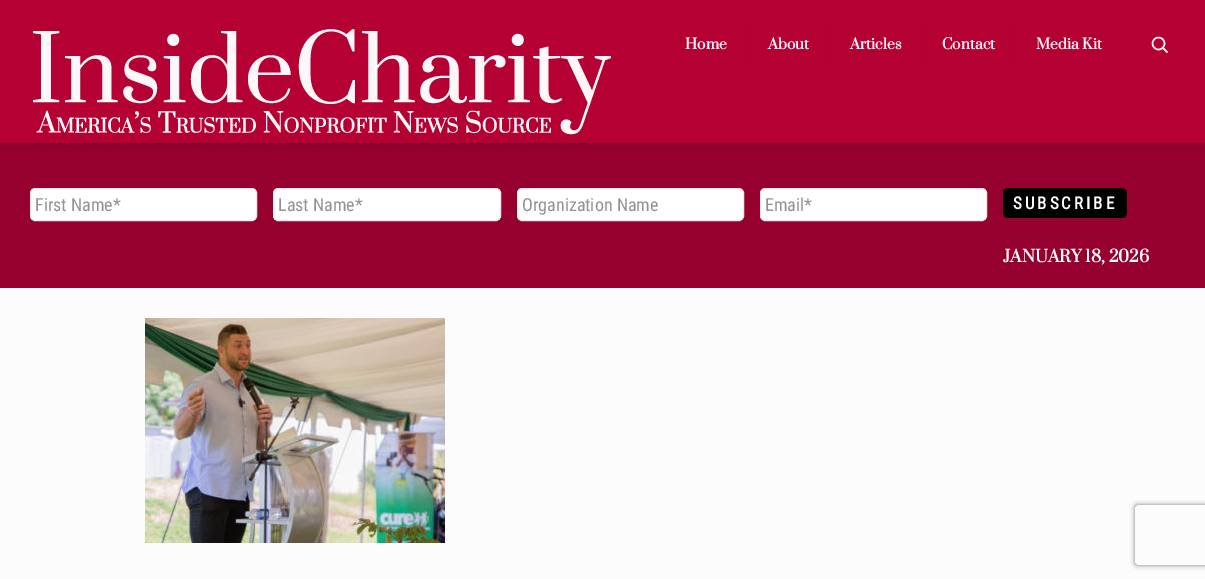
%!PS-Adobe-3.0
%%BoundingBox: 0 0 1205 579
%%LanguageLevel: 3
%%Pages: 1
%%EndComments
%%BeginProlog
/setink { dup -16 bitshift 255 div exch dup -8 bitshift 255 and 255 div exch 255 and 255 div setrgbcolor } def
/usefont { [ exch dup neg 0 0 3 -1 roll 0 0 ] selectfont } def
/setalpha { dup .setfillconstantalpha .setstrokeconstantalpha } def
/disc { newpath 0 360 arc closepath } def
/rrect { 5 dict begin { /r /h /w /y /x } { exch def } forall
  x r add y moveto x w add y 2 copy h add r arct x w add y h add x 1 index r arct
  x y h add x y r arct x y 2 copy exch w add exch r arct closepath end } def
/softshadow { 12 dict begin { /a /b /q /h /w /y /x } { exch def } forall gsave /was 0 def
  9 -2 -9 { dup b mul 4 div /e exch def 1 sub .425 mul 2.718 exch exp 1 add a .99 .min exch div /now exch def
    1 1 now sub 1 was sub div sub setalpha /was now def
    w h .min e 2 mul add 0 gt { x e sub y e sub w e 2 mul add h e 2 mul add
      q e add b .6 mul add w h .min 2 div e add .min 0 .max rrect fill } if } for grestore end } def
/drawimage { 5 dict begin { /h /w /y /x /name } { exch def } forall
  gsave x y translate w h scale
  w h 8 [w 0 0 h 0 0] name (r) file false 3 colorimage grestore end } def
%%EndProlog
%%BeginSetup
<< /PageSize [1205 579] /PageUsesTransparency true >> setpagedevice
%%EndSetup
%%Page: 1 1
0 .pushpdf14devicefilter
0 579 translate 1 -1 scale
4 setmiterlimit
16#FCFCFC setink
0 0 1205 579 rectfill
[
    [0 0 1205 142 16#B40032]
    [0 143 1205 145 16#96002E]
    [0 142 1205 1 16#B30032]
] { aload pop setink rectfill } forall
gsave
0 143 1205 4 rectclip
16#050001 setink
0 2 1205 143 0 2.5 0.1 softshadow
grestore
(img1.raw) 33 29 578 106 drawimage
16#AB0030 setink
747 30 1 30 rectfill
/Prata-Bold 14 usefont
16#FDF7F9 setink
685 49 moveto (Home) show
16#AB0030 setink
829 30 1 30 rectfill
16#FDF7F9 setink
768 49 moveto (About) show
16#AB0030 setink
921 30 1 30 rectfill
16#FDF7F9 setink
850 49 moveto (Articles) show
16#AB0030 setink
1015 30 1 30 rectfill
16#FDF7F9 setink
942 49 moveto (Contact) show
1036 49 moveto (Media Kit) show
1.5 setlinewidth
1158.5 43.5 6 disc stroke
1162.5 47.5 moveto 1167.5 52.5 lineto stroke
16#FFFFFF setink
30.5 188.5 226 32 4.5 rrect gsave fill grestore
16#EBEBEB setink
1 setlinewidth
stroke
/RobotoCondensed-Regular 18 usefont
16#929292 setink
35 211 moveto (First Name*) show
16#FFFFFF setink
273.5 188.5 227 32 4.5 rrect gsave fill grestore
16#EBEBEB setink
stroke
16#929292 setink
278 211 moveto (Last Name*) show
16#FFFFFF setink
517.5 188.5 226 32 4.5 rrect gsave fill grestore
16#EBEBEB setink
stroke
16#929292 setink
522 211 moveto (Organization Name) show
16#FFFFFF setink
760.5 188.5 226 32 4.5 rrect gsave fill grestore
16#EBEBEB setink
stroke
16#929292 setink
765 211 moveto (Email*) show
gsave
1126 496 moveto 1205 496 lineto 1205 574 lineto 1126 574 lineto closepath 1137 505 moveto 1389 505 lineto 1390 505 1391 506 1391 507 curveto 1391 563 lineto 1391 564 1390 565 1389 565 curveto 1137 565 lineto 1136 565 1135 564 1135 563 curveto 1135 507 lineto 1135 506 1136 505 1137 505 curveto closepath eoclip newpath
16#808080 setink
1135 505 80 60 2 2.5 1 softshadow
grestore
16#000000 setink
1003 188 124 30 5 rrect fill
/RobotoCondensed-Bold 17 usefont
16#FFFFFF setink
1013 209 moveto 3 0 (SUBSCRIBE) ashow
/Prata-Bold 16 usefont
1003 262 moveto (JANUARY 18, 2026) show
(img2.raw) 145 318 300 225 drawimage
.poppdf14devicefilter showpage
%%EOF
